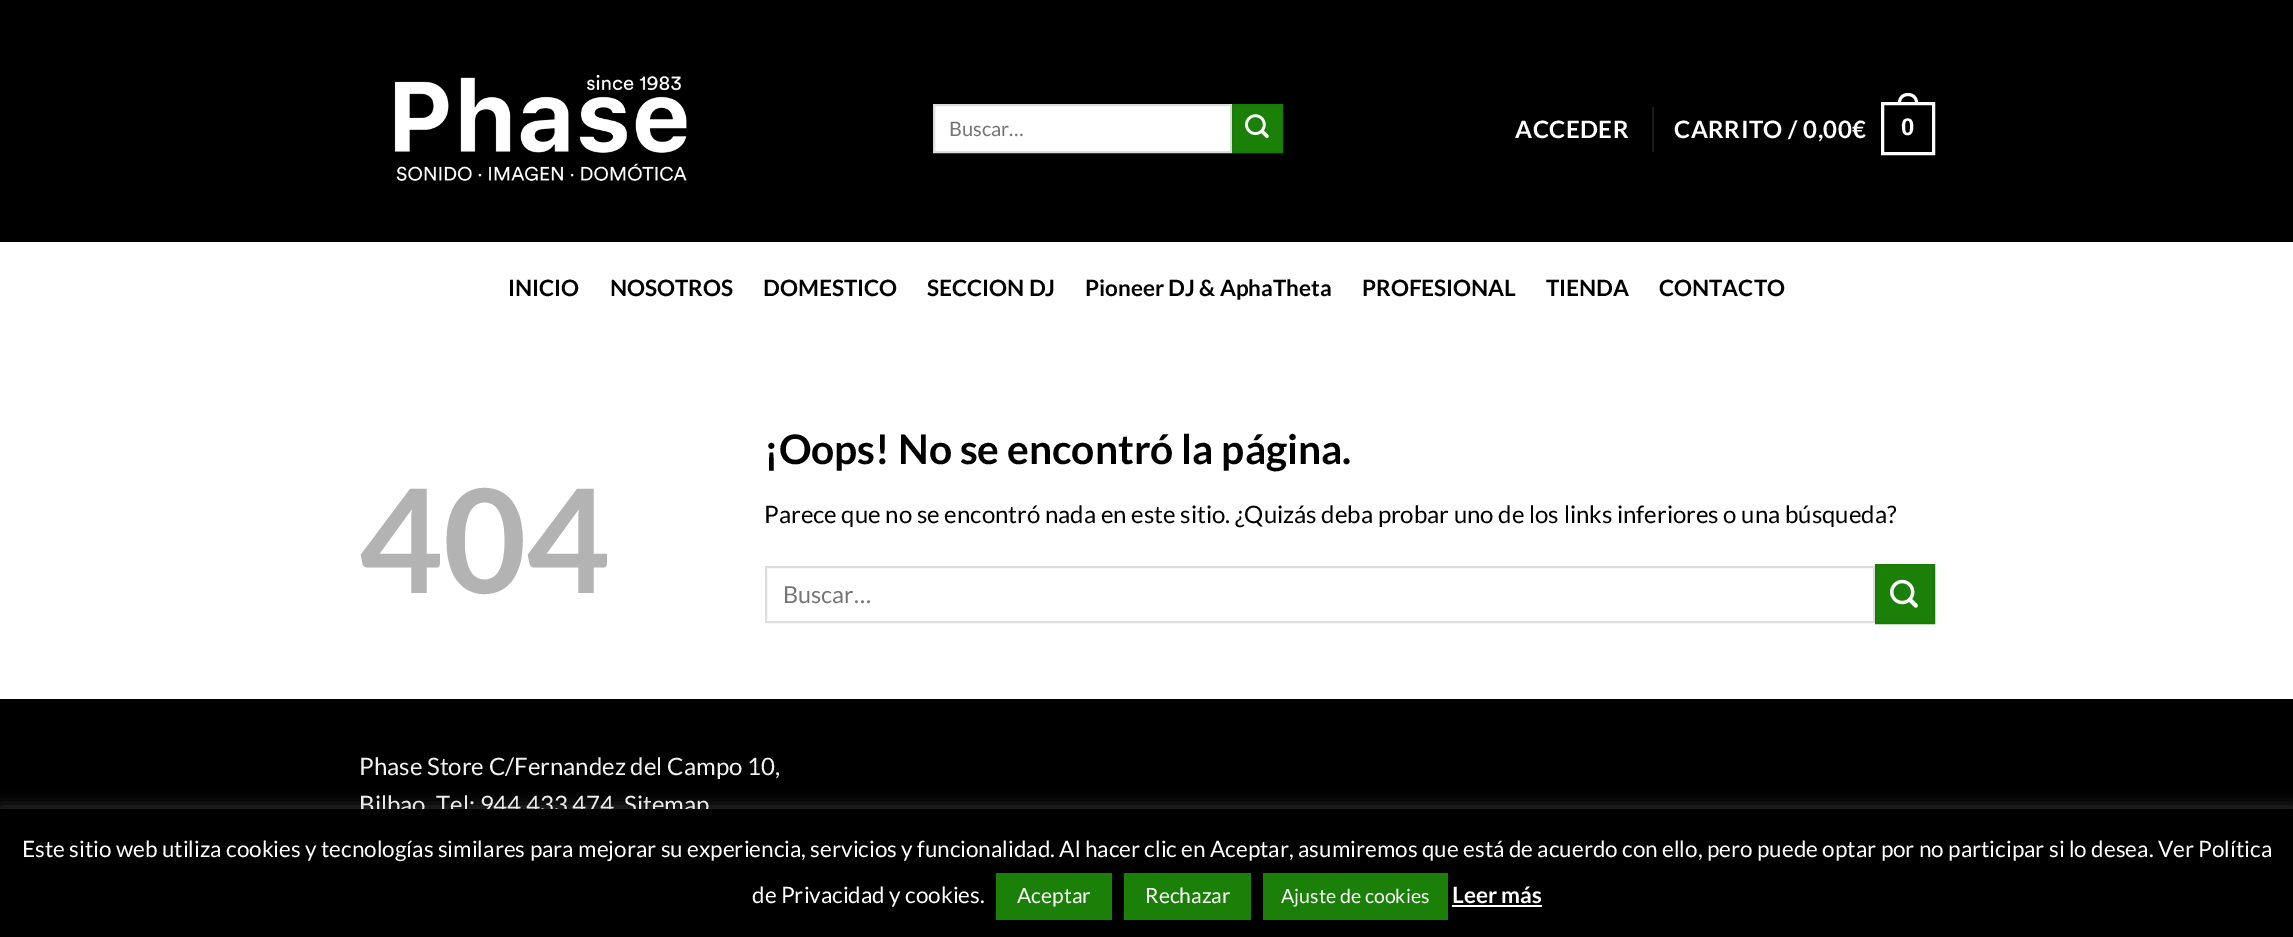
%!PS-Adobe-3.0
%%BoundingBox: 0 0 2293 937
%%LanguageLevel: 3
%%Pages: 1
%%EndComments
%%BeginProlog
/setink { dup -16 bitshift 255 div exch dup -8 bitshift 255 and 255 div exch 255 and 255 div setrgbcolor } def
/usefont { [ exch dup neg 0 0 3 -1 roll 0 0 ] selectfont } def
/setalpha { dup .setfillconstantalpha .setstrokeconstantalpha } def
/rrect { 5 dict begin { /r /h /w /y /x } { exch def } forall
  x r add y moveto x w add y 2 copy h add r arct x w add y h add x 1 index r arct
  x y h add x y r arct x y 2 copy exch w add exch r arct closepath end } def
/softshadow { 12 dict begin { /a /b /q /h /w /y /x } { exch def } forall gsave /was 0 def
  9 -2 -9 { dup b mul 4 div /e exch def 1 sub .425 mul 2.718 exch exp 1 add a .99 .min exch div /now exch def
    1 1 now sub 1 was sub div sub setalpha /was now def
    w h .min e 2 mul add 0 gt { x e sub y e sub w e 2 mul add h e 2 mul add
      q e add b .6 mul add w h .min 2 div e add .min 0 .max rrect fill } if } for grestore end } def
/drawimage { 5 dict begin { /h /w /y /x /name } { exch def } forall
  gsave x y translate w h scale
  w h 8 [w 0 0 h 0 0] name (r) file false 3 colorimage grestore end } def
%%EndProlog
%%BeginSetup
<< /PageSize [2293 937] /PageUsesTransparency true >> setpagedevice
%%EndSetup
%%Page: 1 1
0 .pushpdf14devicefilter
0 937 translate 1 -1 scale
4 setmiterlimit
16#FFFFFF setink
0 0 2293 937 rectfill
16#000000 setink
0 0 2293 242 rectfill
(img1.raw) 394 74 293 107 drawimage
16#FFFFFF setink
934 105 moveto 1231 105 lineto 1231 152 lineto 934 152 lineto closepath gsave fill grestore
16#DDDDDD setink
2 setlinewidth
stroke
/Lato-Regular 20 usefont
16#757575 setink
949 136 moveto (Buscar…) show
16#1A8007 setink
1233 105 moveto 1282 105 lineto 1282 152 lineto 1233 152 lineto closepath gsave fill grestore
16#197A07 setink
stroke
(img2.raw) 1245 114 24 24 drawimage
/Lato-Bold 24 usefont
16#FFFFFF setink
1515 138 moveto 0.5 0 (ACCEDER) ashow
16#1A1A1A setink
1652 107 2 45 rectfill
16#FFFFFF setink
1674 138 moveto 0.5 0 (CARRITO / 0,00€) ashow
3 setlinewidth
1882.5 103.5 51 50 rectstroke
1908 93 moveto 1915 93 1918.5 98.5 1918.5 105 curveto 1897.5 105 lineto 1897.5 98.5 1901 93 1908 93 curveto closepath 1908 96 moveto 1913.5 96 1915.5 100.5 1915.5 105 curveto 1900.5 105 lineto 1900.5 100.5 1902.5 96 1908 96 curveto closepath eofill
/LiberationSans-Bold 24 usefont
1901 135 moveto 0.5 0 (0) ashow
/Lato-Bold 22.5 usefont
16#000000 setink
[
    [(INICIO) 508 296]
    [(NOSOTROS) 610 296]
    [(DOMESTICO) 763 296]
    [(SECCION DJ) 927 296]
    [(Pioneer DJ & AphaTheta) 1085 296]
    [(PROFESIONAL) 1362 296]
    [(TIENDA) 1546 296]
    [(CONTACTO) 1659 296]
] { aload pop moveto show } forall
/Lato-Bold 144 usefont
16#B3B3B3 setink
359 593 moveto (404) show
/Lato-Bold 40.75 usefont
16#000000 setink
764 464 moveto (¡Oops! No se encontró la página.) show
/Lato-Regular 24 usefont
764 523 moveto (Parece que no se encontró nada en este sitio. ¿Quizás deba probar uno de los links inferiores o una búsqueda?) show
16#DDDDDD setink
2 setlinewidth
766 567 1108 55 rectstroke
/Lato-Regular 23.5 usefont
16#757575 setink
783 603 moveto (Buscar…) show
16#1A8007 setink
1876 565 moveto 1934 565 lineto 1934 623 lineto 1876 623 lineto closepath gsave fill grestore
16#197A07 setink
stroke
(img3.raw) 1890 579 28 29 drawimage
16#000000 setink
0 699 2293 110 rectfill
/Lato-Regular 24 usefont
16#F1F1F1 setink
[
    [(Phase Store C/Fernandez del Campo 10,) 359 775]
    [(Bilbao) 359 813]
    [(Tel: 944 433 474) 436 813]
    [(Sitemap) 624 813]
] { aload pop moveto show } forall
16#ACABAB setink
0 807 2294 129 0 7.5 0.3 softshadow
16#000000 setink
0 809 2293 128 rectfill
/Lato-Regular 22.5 usefont
16#FFFFFF setink
22 857 moveto (Este sitio web utiliza cookies y tecnologías similares para mejorar su experiencia, servicios y funcionalidad. Al hacer clic en Aceptar, asumiremos que está de acuerdo con ello, pero puede optar por no participar si lo desea. Ver Política) show
752 903 moveto (de Privacidad y cookies.) show
16#1A8007 setink
996 873 116 47 rectfill
/Lato-Regular 21 usefont
16#FFFFFF setink
1017 903 moveto (Aceptar) show
16#1A8007 setink
1124 873 127 47 rectfill
16#FFFFFF setink
1145 903 moveto (Rechazar) show
16#1A8007 setink
1263 873 185 47 rectfill
/Lato-Regular 19.5 usefont
16#FFFFFF setink
1281 903 moveto (Ajuste de cookies) show
/Lato-Bold 22.5 usefont
1452 903 moveto (Leer más) show
1452 905 90 2 rectfill
.poppdf14devicefilter showpage
%%EOF
